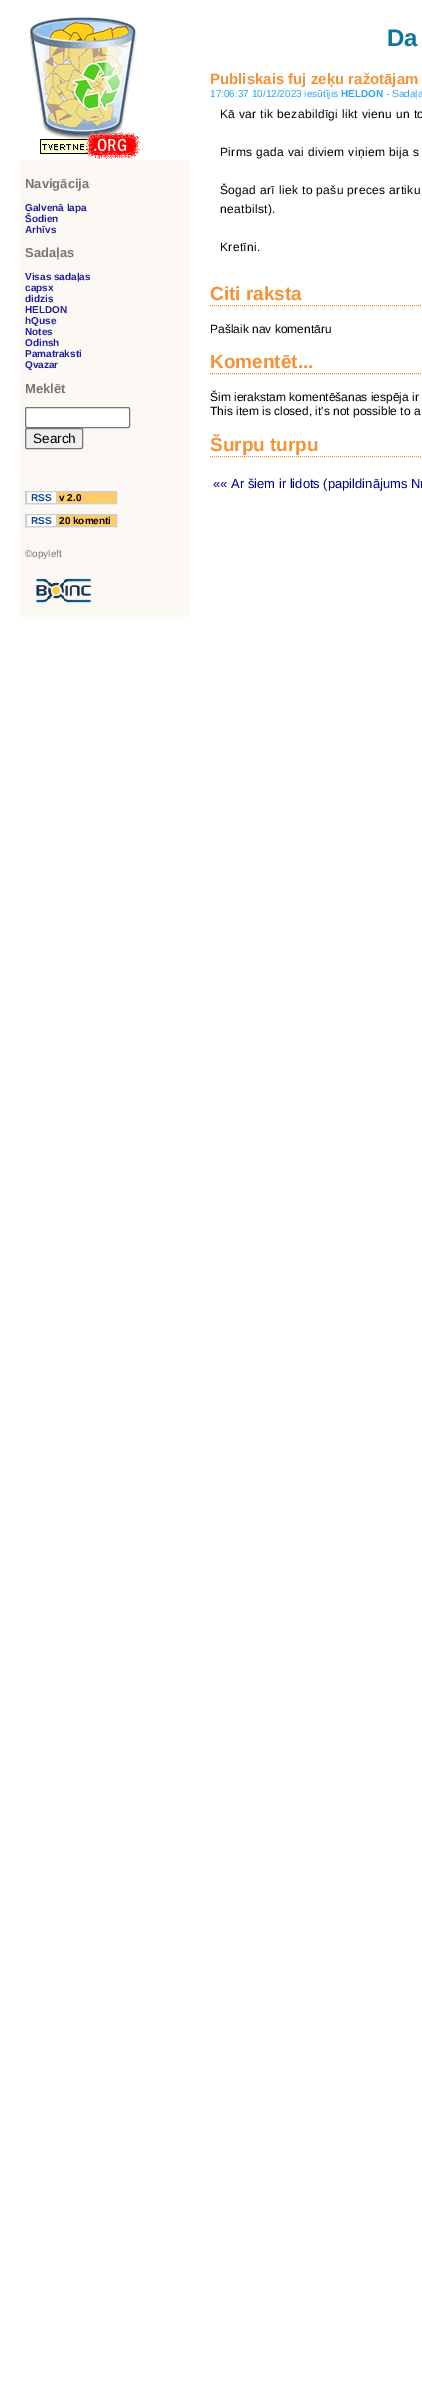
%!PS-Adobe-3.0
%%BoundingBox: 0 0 422 2388
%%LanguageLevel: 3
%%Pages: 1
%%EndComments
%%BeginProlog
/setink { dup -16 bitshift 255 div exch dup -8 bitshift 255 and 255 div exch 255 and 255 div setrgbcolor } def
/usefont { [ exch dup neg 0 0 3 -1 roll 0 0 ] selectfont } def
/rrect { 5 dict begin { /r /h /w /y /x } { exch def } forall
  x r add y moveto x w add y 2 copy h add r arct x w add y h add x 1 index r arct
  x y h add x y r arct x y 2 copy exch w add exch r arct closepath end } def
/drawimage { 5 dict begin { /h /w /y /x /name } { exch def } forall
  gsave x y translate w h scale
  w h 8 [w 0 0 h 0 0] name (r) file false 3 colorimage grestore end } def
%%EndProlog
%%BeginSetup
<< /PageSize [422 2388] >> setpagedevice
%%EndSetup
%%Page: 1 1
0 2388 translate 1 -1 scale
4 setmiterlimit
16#FFFFFF setink
0 0 422 2388 rectfill
(img1.raw) 29 17 111 142 drawimage
/LiberationSans-Bold 24 usefont
16#0C779D setink
387 46 moveto (Da) show
/LiberationSans-Bold 15 usefont
16#F59137 setink
210 84 moveto (Publiskais fuj zeķu ražotājam) show
/LiberationSans-Regular 10 usefont
16#29A6EF setink
210 97 moveto (17:06:37 10/12/2023 iesūtījis) show
/LiberationSans-Bold 10 usefont
341 97 moveto (HELDON) show
/LiberationSans-Regular 10 usefont
386 97 moveto (- Sadaļa) show
/LiberationSans-Regular 12 usefont
16#000000 setink
220 118 moveto 0.35 0 (Kā var tik bezabildīgi likt vienu un to) ashow
220 156 moveto 0.35 0 (Pirms gada vai diviem viņiem bija s) ashow
220 194 moveto 0.35 0 (Šogad arī liek to pašu preces artiku) ashow
220 213 moveto 0.35 0 (neatbilst\).) ashow
220 251 moveto 0.35 0 (Kretīni.) ashow
16#F59137 setink
[1 1] 0 setdash
210 305.5 moveto 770 305.5 lineto stroke
/LiberationSans-Bold 19 usefont
210 300 moveto (Citi raksta) show
/LiberationSans-Regular 12 usefont
16#000000 setink
210 333 moveto (Pašlaik nav komentāru) show
16#F59137 setink
210 373.5 moveto 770 373.5 lineto stroke
/LiberationSans-Bold 19 usefont
210 368 moveto (Komentēt...) show
/LiberationSans-Regular 12 usefont
16#000000 setink
210 401 moveto (Šim ierakstam komentēšanas iespēja ir) show
210 415 moveto (This item is closed, it's not possible to a) show
16#F59137 setink
210 456.5 moveto 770 456.5 lineto stroke
/LiberationSans-Bold 19 usefont
210 451 moveto (Šurpu turpu) show
/LiberationSans-Regular 13 usefont
16#00008B setink
213 488 moveto («« Ar šiem ir lidots \(papildinājums Nr) show
16#FCF8F3 setink
20 160 170 457 rectfill
/LiberationSans-Bold 13 usefont
16#777777 setink
25 188 moveto (Navigācija) show
/LiberationSans-Bold 10 usefont
16#1C229B setink
[
    [(Galvenā lapa) 25 211]
    [(Šodien) 25 222]
    [(Arhīvs) 25 233]
] { aload pop moveto show } forall
/LiberationSans-Bold 13 usefont
16#777777 setink
25 257 moveto (Sadaļas) show
/LiberationSans-Bold 10 usefont
16#1C229B setink
[
    [(Visas sadaļas) 25 280]
    [(capsx) 25 291]
    [(didzis) 25 302]
    [(HELDON) 25 313]
    [(hQuse) 25 324]
    [(Notes) 25 335]
    [(Odinsh) 25 346]
    [(Pamatraksti) 25 357]
    [(Qvazar) 25 368]
] { aload pop moveto show } forall
/LiberationSans-Bold 13 usefont
16#777777 setink
25 393 moveto (Meklēt) show
16#FFFFFF setink
25.5 407.5 104 20 1.5 rrect gsave fill grestore
16#767676 setink
[] 0 setdash
stroke
16#EFEFEF setink
25.5 428.5 57 20 1.5 rrect gsave fill grestore
16#767676 setink
stroke
/LiberationSans-Regular 13.5 usefont
16#000000 setink
33 443 moveto (Search) show
16#FFCC66 setink
57 492 59 11 rectfill
16#CCCCCC setink
25.5 491.5 91 12 rectstroke
16#FFFFFF setink
26.5 491.5 moveto 56.5 491.5 lineto 56.5 503.5 lineto 26.5 503.5 lineto closepath gsave fill grestore
16#CECFCE setink
stroke
/LiberationSans-Bold 10 usefont
16#0C479D setink
31 501 moveto (RSS) show
16#000000 setink
59 501 moveto (v 2.0) show
16#FFCC66 setink
57 515 59 11 rectfill
16#CCCCCC setink
25.5 514.5 91 12 rectstroke
16#FFFFFF setink
26.5 514.5 moveto 56.5 514.5 lineto 56.5 526.5 lineto 26.5 526.5 lineto closepath gsave fill grestore
16#CECFCE setink
stroke
16#0C479D setink
31 524 moveto (RSS) show
16#000000 setink
59 524 moveto (20 komenti) show
/LiberationSans-Regular 10 usefont
16#777777 setink
25 557 moveto (©opyleft) show
(img2.raw) 36 578 55 25 drawimage
showpage
%%EOF
